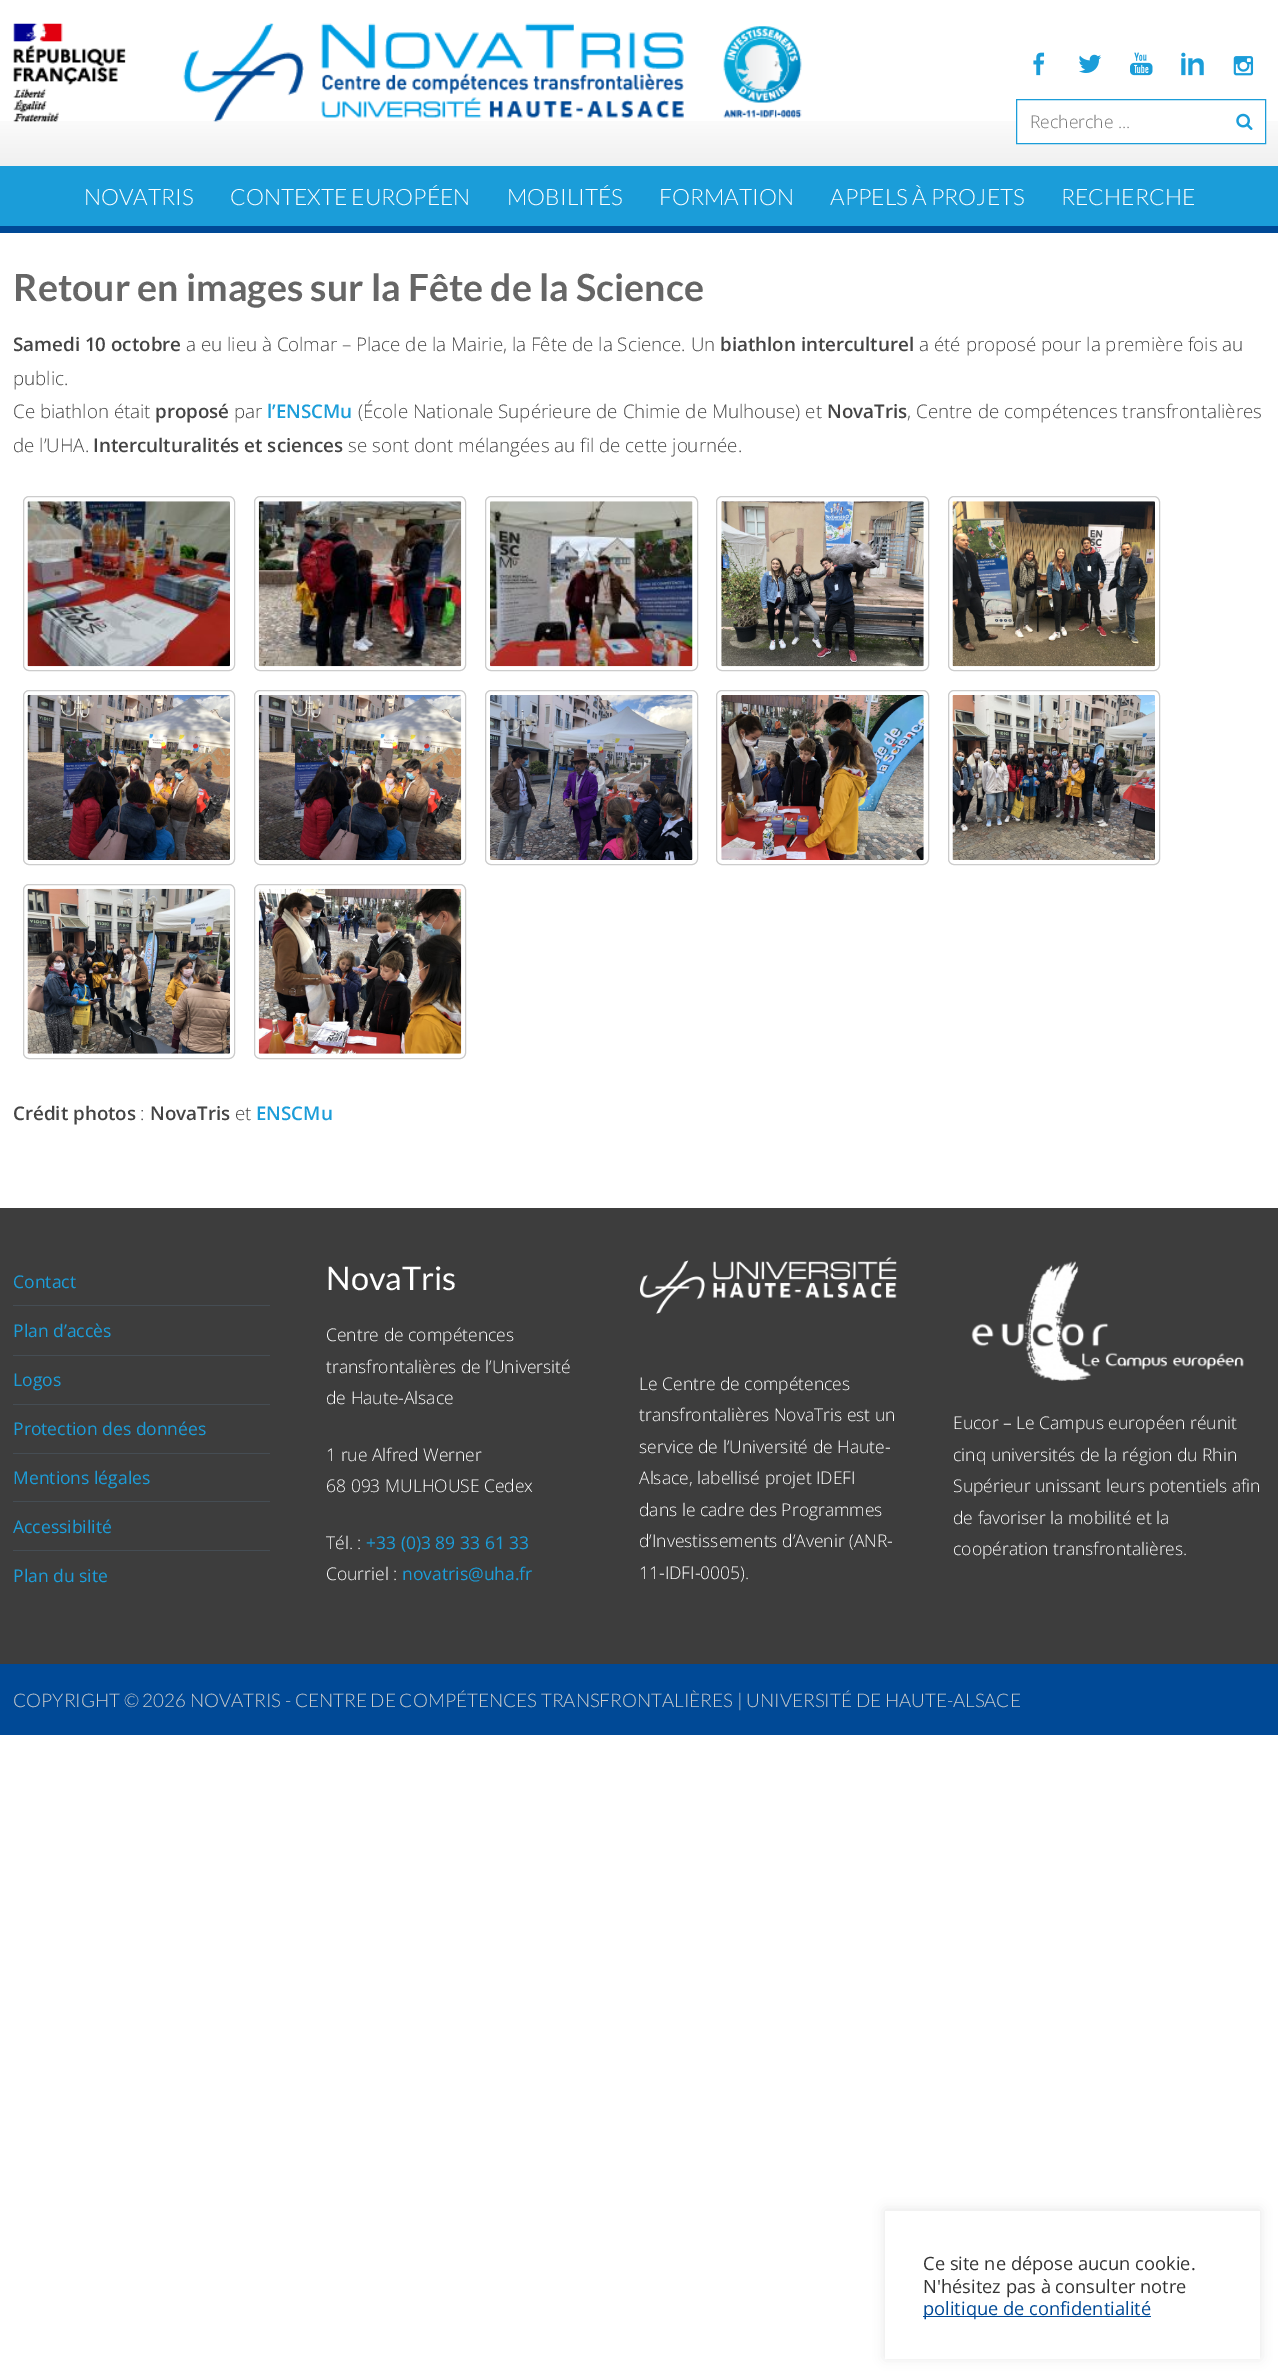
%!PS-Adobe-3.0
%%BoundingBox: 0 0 1278 2377
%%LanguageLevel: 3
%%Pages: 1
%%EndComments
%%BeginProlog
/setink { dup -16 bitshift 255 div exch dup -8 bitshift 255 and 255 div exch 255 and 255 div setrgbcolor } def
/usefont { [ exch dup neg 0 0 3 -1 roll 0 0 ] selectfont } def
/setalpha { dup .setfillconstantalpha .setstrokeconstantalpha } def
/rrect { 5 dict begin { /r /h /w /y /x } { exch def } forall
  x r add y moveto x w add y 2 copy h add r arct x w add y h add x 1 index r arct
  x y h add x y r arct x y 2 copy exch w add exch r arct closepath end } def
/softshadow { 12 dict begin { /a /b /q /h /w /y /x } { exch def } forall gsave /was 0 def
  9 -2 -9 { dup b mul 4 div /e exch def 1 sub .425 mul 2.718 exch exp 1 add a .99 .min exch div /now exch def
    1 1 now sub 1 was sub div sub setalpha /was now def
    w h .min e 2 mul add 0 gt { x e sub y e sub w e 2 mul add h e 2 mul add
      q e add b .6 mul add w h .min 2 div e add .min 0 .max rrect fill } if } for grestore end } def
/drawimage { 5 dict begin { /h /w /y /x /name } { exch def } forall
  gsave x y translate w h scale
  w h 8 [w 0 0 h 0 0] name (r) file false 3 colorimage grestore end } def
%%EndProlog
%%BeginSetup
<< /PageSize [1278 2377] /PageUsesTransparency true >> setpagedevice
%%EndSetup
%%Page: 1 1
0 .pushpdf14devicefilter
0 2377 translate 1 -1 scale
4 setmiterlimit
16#FFFFFF setink
0 0 1278 2377 rectfill
(img1.raw) 0 121 1278 45 drawimage
(img2.raw) 13 23 789 99 drawimage
(img3.raw) 1033 52 12 24 drawimage
(img4.raw) 1079 54 23 19 drawimage
(img5.raw) 1130 52 23 24 drawimage
(img6.raw) 1181 52 23 24 drawimage
(img7.raw) 1233 56 21 20 drawimage
1017 121 248 22 rectfill
16#1B9DD9 setink
1016.5 99.5 249 44 rectstroke
/OpenSans-Light 17.5 usefont
16#757575 setink
1030 128 moveto (Recherche ...) show
(img8.raw) 1236 113 17 17 drawimage
16#1B9DD9 setink
0 166 1278 60 rectfill
16#004996 setink
0 226 1278 7 rectfill
/Lato-Light 22.5 usefont
16#FFFFFF setink
[
    [(NOVATRIS) 84 205]
    [(CONTEXTE EUROPÉEN) 230 205]
    [(MOBILITÉS) 507 205]
    [(FORMATION) 659 205]
    [(APPELS À PROJETS) 830 205]
    [(RECHERCHE) 1061 205]
] { aload pop moveto show } forall
/Lato-Bold 37.5 usefont
16#666666 setink
13 301 moveto (Retour en images sur la Fête de la Science) show
/OpenSans-SemiBold 18.75 usefont
16#444444 setink
13 351 moveto (Samedi 10 octobre) show
/OpenSans-Light 18.75 usefont
186 351 moveto (a eu lieu à Colmar – Place de la Mairie, la Fête de la Science. Un) show
/OpenSans-SemiBold 18.75 usefont
720 351 moveto (biathlon interculturel) show
/OpenSans-Light 18.75 usefont
[
    [(a été proposé pour la première fois au) 919 351]
    [(public.) 13 385]
    [(Ce biathlon était) 13 418]
] { aload pop moveto show } forall
/OpenSans-SemiBold 18.75 usefont
155 418 moveto (proposé) show
/OpenSans-Light 18.75 usefont
234 418 moveto (par) show
/OpenSans-SemiBold 18.75 usefont
16#1B9DD9 setink
267 418 moveto (l’ENSCMu) show
/OpenSans-Light 18.75 usefont
16#444444 setink
358 418 moveto (\(École Nationale Supérieure de Chimie de Mulhouse\) et) show
/OpenSans-SemiBold 18.75 usefont
827 418 moveto (NovaTris) show
/OpenSans-Light 18.75 usefont
907 418 moveto (, Centre de compétences transfrontalières) show
13 452 moveto (de l’UHA.) show
/OpenSans-SemiBold 18.75 usefont
93 452 moveto (Interculturalités et sciences) show
/OpenSans-Light 18.75 usefont
348 452 moveto (se sont dont mélangées au fil de cette journée.) show
16#CCCCCC setink
23.5 496.5 211 174 5.5 rrect stroke
(img9.raw) 27 501 203 166 drawimage
254.5 496.5 211 174 5.5 rrect stroke
(img10.raw) 258 501 204 166 drawimage
485.5 496.5 212 174 5.5 rrect stroke
(img11.raw) 490 501 203 166 drawimage
716.5 496.5 212 174 5.5 rrect stroke
(img12.raw) 721 501 203 166 drawimage
948.5 496.5 211 174 5.5 rrect stroke
(img13.raw) 952 501 203 166 drawimage
23.5 690.5 211 174 5.5 rrect stroke
(img14.raw) 27 695 203 165 drawimage
254.5 690.5 211 174 5.5 rrect stroke
(img15.raw) 258 695 204 165 drawimage
485.5 690.5 212 174 5.5 rrect stroke
(img16.raw) 490 695 203 165 drawimage
716.5 690.5 212 174 5.5 rrect stroke
(img17.raw) 721 695 203 165 drawimage
948.5 690.5 211 174 5.5 rrect stroke
(img18.raw) 952 695 203 165 drawimage
23.5 884.5 211 174 5.5 rrect stroke
(img19.raw) 27 888 203 166 drawimage
254.5 884.5 211 174 5.5 rrect stroke
(img20.raw) 258 888 204 166 drawimage
/OpenSans-SemiBold 18.75 usefont
16#444444 setink
13 1120 moveto (Crédit photos) show
/OpenSans-Light 18.75 usefont
140 1120 moveto (:) show
/OpenSans-SemiBold 18.75 usefont
150 1120 moveto (NovaTris) show
/OpenSans-Light 18.75 usefont
235 1120 moveto (et) show
/OpenSans-SemiBold 18.75 usefont
16#1B9DD9 setink
256 1120 moveto (ENSCMu) show
16#3D3D3D setink
0 1208 1278 456 rectfill
16#454D54 setink
13 1305 257 1 rectfill
/OpenSans-Regular 17.5 usefont
16#1B9DD9 setink
13 1288 moveto (Contact) show
16#454D54 setink
13 1355 257 1 rectfill
16#1B9DD9 setink
13 1337 moveto (Plan d’accès) show
16#454D54 setink
13 1404 257 1 rectfill
16#1B9DD9 setink
13 1386 moveto (Logos) show
16#454D54 setink
13 1453 257 1 rectfill
16#1B9DD9 setink
13 1435 moveto (Protection des données) show
16#454D54 setink
13 1501 257 1 rectfill
16#1B9DD9 setink
13 1484 moveto (Mentions légales) show
16#454D54 setink
13 1550 257 1 rectfill
16#1B9DD9 setink
13 1533 moveto (Accessibilité) show
13 1582 moveto (Plan du site) show
/Lato-Regular 32.5 usefont
16#FFFFFF setink
326 1290 moveto (NovaTris) show
/OpenSans-Light 17.5 usefont
[
    [(Centre de compétences) 326 1341]
    [(transfrontalières de l’Université) 326 1373]
    [(de Haute-Alsace) 326 1404]
    [(1 rue Alfred Werner) 326 1461]
    [(68 093 MULHOUSE Cedex) 326 1492]
    [(Tél. :) 326 1549]
] { aload pop moveto show } forall
/OpenSans-Regular 17.5 usefont
16#1B9DD9 setink
366 1549 moveto (+33 \(0\)3 89 33 61 33) show
/OpenSans-Light 17.5 usefont
16#FFFFFF setink
326 1580 moveto (Courriel :) show
/OpenSans-Regular 17.5 usefont
16#1B9DD9 setink
402 1580 moveto (novatris@uha.fr) show
(img21.raw) 640 1257 257 57 drawimage
/OpenSans-Light 17.5 usefont
16#FFFFFF setink
[
    [(Le Centre de compétences) 639 1390]
    [(transfrontalières NovaTris est un) 639 1421]
    [(service de l’Université de Haute-) 639 1453]
    [(Alsace, labellisé projet IDEFI) 639 1484]
    [(dans le cadre des Programmes) 639 1516]
    [(d’Investissements d’Avenir \(ANR-) 639 1547]
    [(11-IDFI-0005\).) 639 1579]
] { aload pop moveto show } forall
(img22.raw) 971 1261 273 120 drawimage
[
    [(Eucor – Le Campus européen réunit) 953 1429]
    [(cinq universités de la région du Rhin) 953 1461]
    [(Supérieur unissant leurs potentiels afin) 953 1492]
    [(de favoriser la mobilité et la) 953 1524]
    [(coopération transfrontalières.) 953 1555]
] { aload pop moveto show } forall
16#004996 setink
0 1664 1278 71 rectfill
/Lato-Light 18.75 usefont
16#CCCCCC setink
13 1707 moveto (COPYRIGHT © 2026 NOVATRIS - CENTRE DE COMPÉTENCES TRANSFRONTALIÈRES | UNIVERSITÉ DE HAUTE-ALSACE) show
16#ACABAB setink
885 2210 375 148 0 6 0.3 softshadow
16#FFFFFF setink
885 2211 375 148 rectfill
/OpenSans-Regular 18.3 usefont
16#333333 setink
923 2270 moveto (Ce site ne dépose aucun cookie.) show
923 2293 moveto (N'hésitez pas à consulter notre) show
16#004996 setink
923 2316 228 1 rectfill
923 2315 moveto (politique de confidentialité) show
.poppdf14devicefilter showpage
%%EOF
